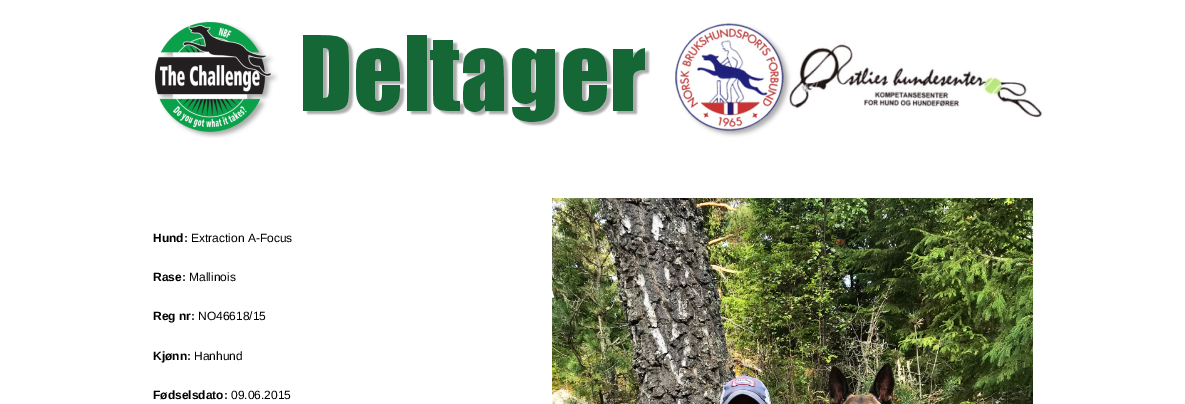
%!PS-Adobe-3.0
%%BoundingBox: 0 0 1185 404
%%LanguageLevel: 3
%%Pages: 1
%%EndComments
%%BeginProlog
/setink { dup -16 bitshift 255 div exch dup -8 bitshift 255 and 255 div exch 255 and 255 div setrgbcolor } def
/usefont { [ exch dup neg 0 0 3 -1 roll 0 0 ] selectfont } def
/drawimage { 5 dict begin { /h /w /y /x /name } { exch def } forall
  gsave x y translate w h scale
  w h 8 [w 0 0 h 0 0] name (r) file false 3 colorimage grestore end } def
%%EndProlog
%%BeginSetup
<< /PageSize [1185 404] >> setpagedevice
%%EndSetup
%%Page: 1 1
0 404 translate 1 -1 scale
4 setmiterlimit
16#FFFFFF setink
0 0 1185 404 rectfill
(img1.raw) 155 22 888 116 drawimage
/LiberationSans-Bold 12 usefont
16#000000 setink
153 242 moveto (Hund:) show
/LiberationSans-Regular 12 usefont
191 242 moveto (Extraction A-Focus) show
(img2.raw) 552 198 481 206 drawimage
/LiberationSans-Bold 12 usefont
153 281 moveto (Rase:) show
/LiberationSans-Regular 12 usefont
189 281 moveto (Mallinois) show
/LiberationSans-Bold 12 usefont
153 320 moveto (Reg nr:) show
/LiberationSans-Regular 12 usefont
198 320 moveto (NO46618/15) show
/LiberationSans-Bold 12 usefont
153 360 moveto (Kjønn:) show
/LiberationSans-Regular 12 usefont
194 360 moveto (Hanhund) show
/LiberationSans-Bold 12 usefont
153 399 moveto (Fødselsdato:) show
/LiberationSans-Regular 12 usefont
231 399 moveto (09.06.2015) show
showpage
%%EOF
